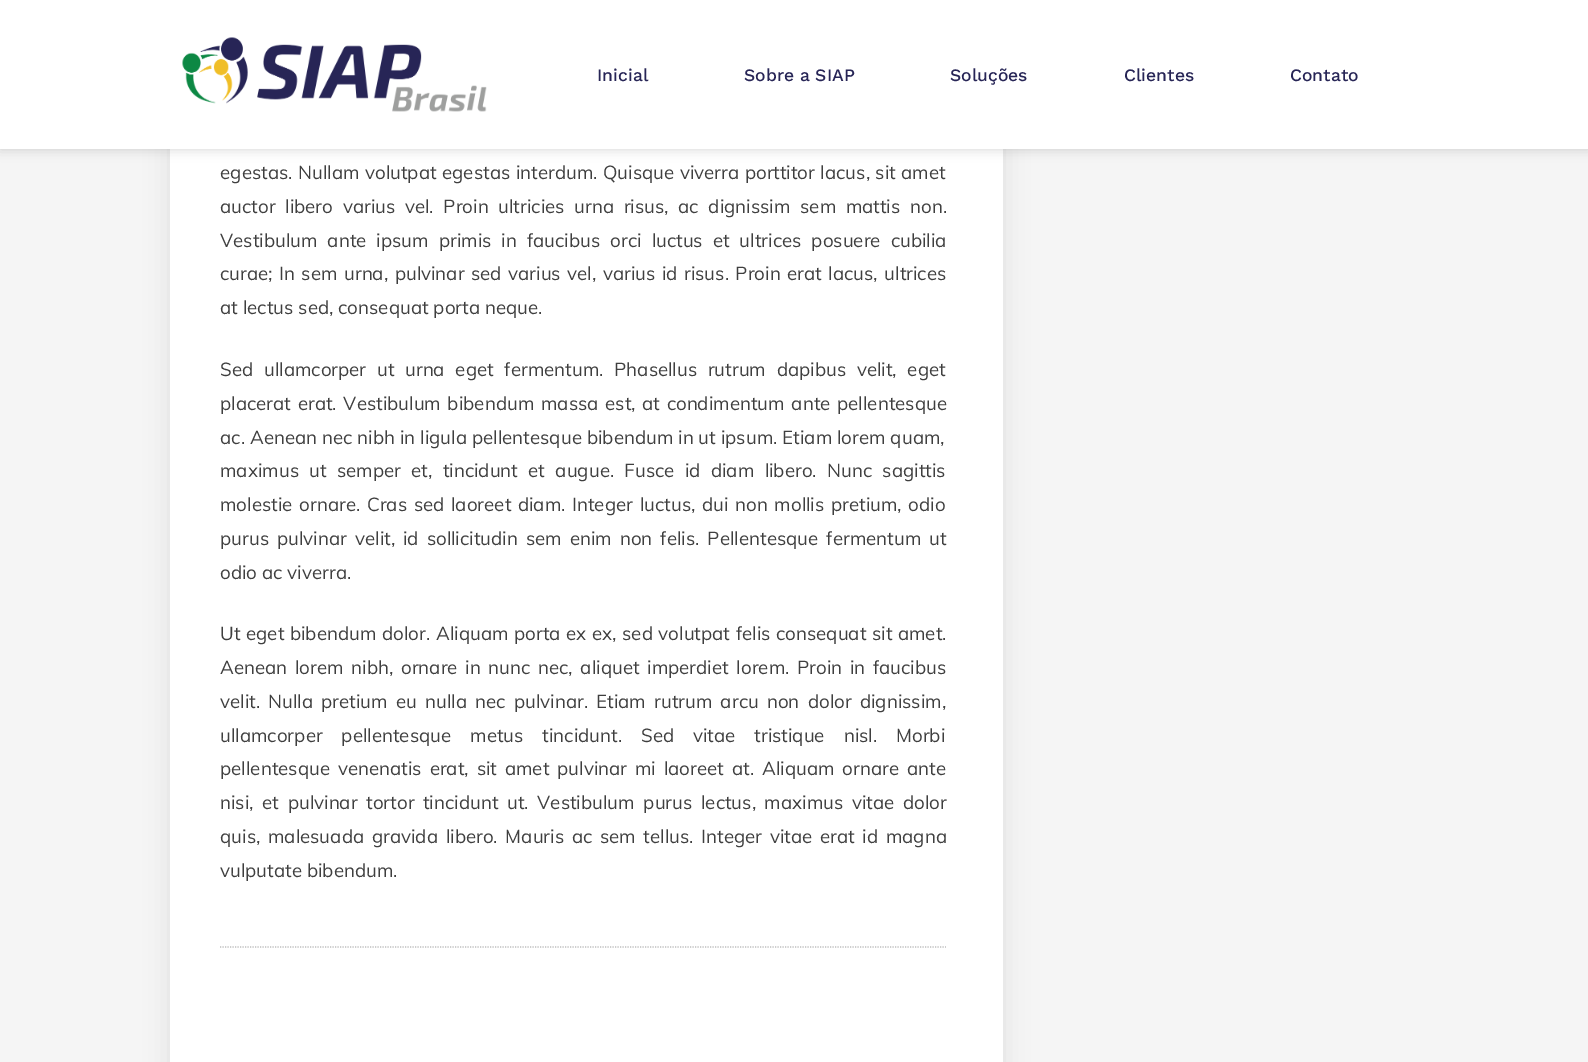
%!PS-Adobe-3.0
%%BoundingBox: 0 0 1588 1062
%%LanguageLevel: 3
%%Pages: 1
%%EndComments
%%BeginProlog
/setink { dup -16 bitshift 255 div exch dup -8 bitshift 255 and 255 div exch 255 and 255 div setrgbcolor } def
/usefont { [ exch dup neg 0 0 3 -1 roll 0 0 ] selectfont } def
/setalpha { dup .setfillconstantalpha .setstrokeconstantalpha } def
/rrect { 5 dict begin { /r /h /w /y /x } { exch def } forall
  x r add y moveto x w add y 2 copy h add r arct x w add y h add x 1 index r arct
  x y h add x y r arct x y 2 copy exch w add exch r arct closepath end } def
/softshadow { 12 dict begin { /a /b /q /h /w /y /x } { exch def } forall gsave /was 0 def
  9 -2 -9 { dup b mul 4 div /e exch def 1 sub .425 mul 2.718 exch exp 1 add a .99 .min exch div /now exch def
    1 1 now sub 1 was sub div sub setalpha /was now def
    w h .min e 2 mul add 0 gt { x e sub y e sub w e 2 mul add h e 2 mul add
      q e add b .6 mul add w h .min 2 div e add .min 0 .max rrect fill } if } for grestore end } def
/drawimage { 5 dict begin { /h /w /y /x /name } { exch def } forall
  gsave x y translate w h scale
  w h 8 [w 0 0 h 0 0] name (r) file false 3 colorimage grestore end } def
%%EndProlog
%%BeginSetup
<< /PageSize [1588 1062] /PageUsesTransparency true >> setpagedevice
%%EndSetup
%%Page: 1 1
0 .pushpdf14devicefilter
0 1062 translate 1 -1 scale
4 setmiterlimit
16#F5F5F5 setink
0 0 1588 1062 rectfill
16#000000 setink
170 -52 833 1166 14 12.5 0.09 softshadow
16#FFFFFF setink
170 149 833 913 rectfill
16#000000 setink
0 0 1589 149 0 6 0.17 softshadow
16#FFFFFF setink
0 0 1588 149 rectfill
(img1.raw) 182 37 305 75 drawimage
/WorkSans-Medium 17.5 usefont
16#272556 setink
[
    [(Inicial) 597 81]
    [(Sobre a SIAP) 744 81]
    [(Soluções) 950 81]
    [(Clientes) 1124 81]
    [(Contato) 1290 81]
] { aload pop moveto show } forall
/Muli-Regular 18.75 usefont
16#3F3F3F setink
220 179 moveto 0.6 0 32 (egestas. Nullam volutpat egestas interdum. Quisque viverra porttitor lacus, sit amet) widthshow
220 213 moveto 4.75 0 32 (auctor libero varius vel. Proin ultricies urna risus, ac dignissim sem mattis non.) widthshow
220 247 moveto 5.1 0 32 (Vestibulum ante ipsum primis in faucibus orci luctus et ultrices posuere cubilia) widthshow
220 280 moveto 1.6 0 32 (curae; In sem urna, pulvinar sed varius vel, varius id risus. Proin erat lacus, ultrices) widthshow
220 314 moveto (at lectus sed, consequat porta neque.) show
220 376 moveto 5.75 0 32 (Sed ullamcorper ut urna eget fermentum. Phasellus rutrum dapibus velit, eget) widthshow
220 410 moveto 1.75 0 32 (placerat erat. Vestibulum bibendum massa est, at condimentum ante pellentesque) widthshow
220 444 moveto (ac. Aenean nec nibh in ligula pellentesque bibendum in ut ipsum. Etiam lorem quam,) show
220 477 moveto 5.4 0 32 (maximus ut semper et, tincidunt et augue. Fusce id diam libero. Nunc sagittis) widthshow
220 511 moveto 1.75 0 32 (molestie ornare. Cras sed laoreet diam. Integer luctus, dui non mollis pretium, odio) widthshow
220 545 moveto 3.1 0 32 (purus pulvinar velit, id sollicitudin sem enim non felis. Pellentesque fermentum ut) widthshow
220 579 moveto (odio ac viverra.) show
220 640 moveto 0.7 0 32 (Ut eget bibendum dolor. Aliquam porta ex ex, sed volutpat felis consequat sit amet.) widthshow
220 674 moveto 2.75 0 32 (Aenean lorem nibh, ornare in nunc nec, aliquet imperdiet lorem. Proin in faucibus) widthshow
220 708 moveto 3.25 0 32 (velit. Nulla pretium eu nulla nec pulvinar. Etiam rutrum arcu non dolor dignissim,) widthshow
220 742 moveto 14 0 32 (ullamcorper pellentesque metus tincidunt. Sed vitae tristique nisl. Morbi) widthshow
220 775 moveto 3 0 32 (pellentesque venenatis erat, sit amet pulvinar mi laoreet at. Aliquam ornare ante) widthshow
220 809 moveto 3.75 0 32 (nisi, et pulvinar tortor tincidunt ut. Vestibulum purus lectus, maximus vitae dolor) widthshow
220 843 moveto 2.75 0 32 (quis, malesuada gravida libero. Mauris ac sem tellus. Integer vitae erat id magna) widthshow
220 877 moveto (vulputate bibendum.) show
16#BCBCBC setink
1.2 setlinewidth
[1.25 1.25] 0 setdash
220 947 moveto 946 947 lineto stroke
.poppdf14devicefilter showpage
%%EOF
